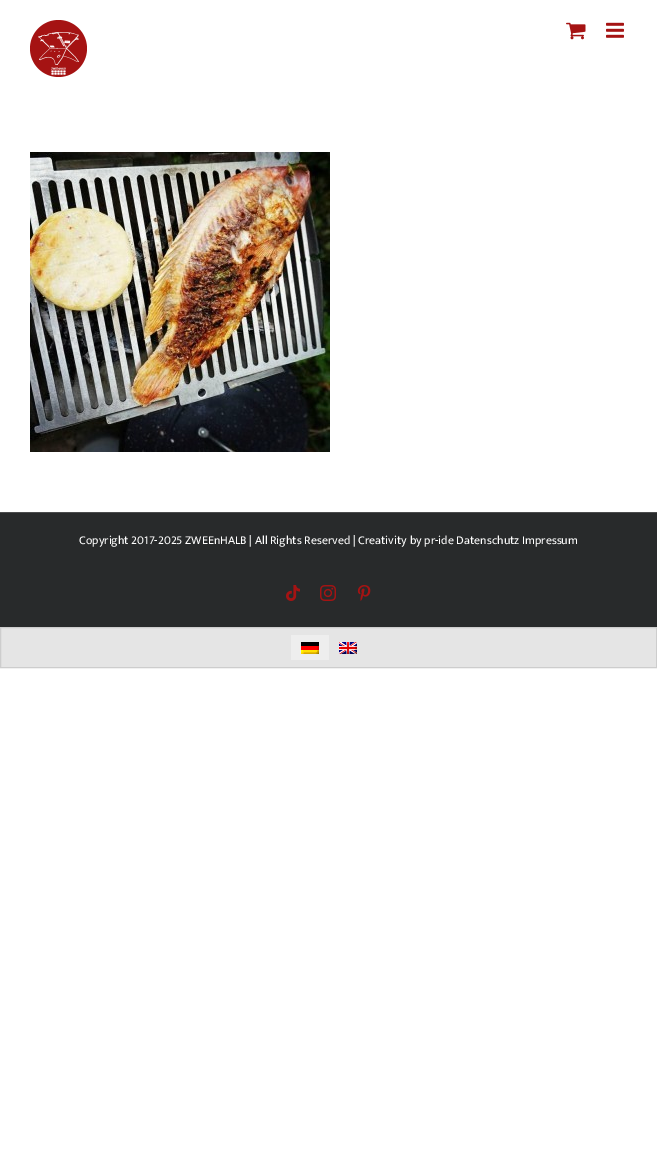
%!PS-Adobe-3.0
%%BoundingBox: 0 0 657 1150
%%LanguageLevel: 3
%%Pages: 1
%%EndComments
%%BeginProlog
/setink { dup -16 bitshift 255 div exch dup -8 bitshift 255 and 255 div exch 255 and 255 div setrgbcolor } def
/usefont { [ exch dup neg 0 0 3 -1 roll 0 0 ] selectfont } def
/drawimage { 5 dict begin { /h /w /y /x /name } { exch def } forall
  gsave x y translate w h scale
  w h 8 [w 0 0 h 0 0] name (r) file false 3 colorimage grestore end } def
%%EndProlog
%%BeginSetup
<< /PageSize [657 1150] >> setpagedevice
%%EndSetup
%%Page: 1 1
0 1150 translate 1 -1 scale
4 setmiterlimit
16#FFFFFF setink
0 0 657 1150 rectfill
(img1.raw) 30 20 57 57 drawimage
(img2.raw) 566 22 20 18 drawimage
(img3.raw) 606 22 18 16 drawimage
(img4.raw) 30 152 300 300 drawimage
16#282A2B setink
0 513 657 114 rectfill
16#4B4C4D setink
0 512 657 1 rectfill
/MuktaVaani-Regular 12 usefont
16#FFFFFF setink
79 544 moveto (Copyright 2017-2025 ZWEEnHALB | All Rights Reserved | Creativity by pr-ide Datenschutz Impressum) show
(img5.raw) 286 585 14 16 drawimage
(img6.raw) 320 585 16 16 drawimage
(img7.raw) 357 585 14 16 drawimage
16#E5E5E5 setink
0.5 627.5 moveto 656.5 627.5 lineto 656.5 667.5 lineto 0.5 667.5 lineto closepath gsave fill grestore
16#CDCDCD setink
stroke
16#EEEEEE setink
291 635 38 25 rectfill
(img8.raw) 301 642 18 12 drawimage
(img9.raw) 339 642 18 12 drawimage
showpage
%%EOF
